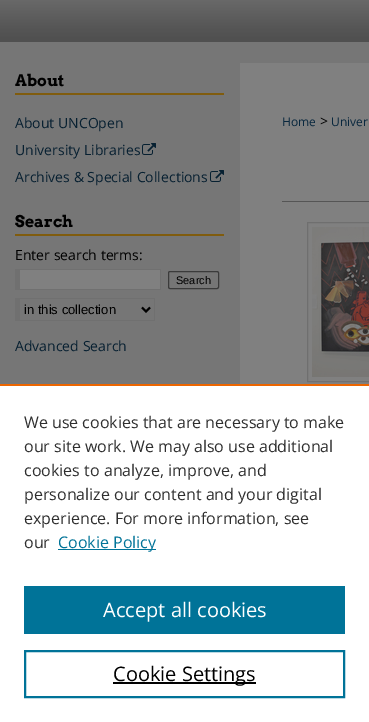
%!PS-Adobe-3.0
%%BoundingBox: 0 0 369 722
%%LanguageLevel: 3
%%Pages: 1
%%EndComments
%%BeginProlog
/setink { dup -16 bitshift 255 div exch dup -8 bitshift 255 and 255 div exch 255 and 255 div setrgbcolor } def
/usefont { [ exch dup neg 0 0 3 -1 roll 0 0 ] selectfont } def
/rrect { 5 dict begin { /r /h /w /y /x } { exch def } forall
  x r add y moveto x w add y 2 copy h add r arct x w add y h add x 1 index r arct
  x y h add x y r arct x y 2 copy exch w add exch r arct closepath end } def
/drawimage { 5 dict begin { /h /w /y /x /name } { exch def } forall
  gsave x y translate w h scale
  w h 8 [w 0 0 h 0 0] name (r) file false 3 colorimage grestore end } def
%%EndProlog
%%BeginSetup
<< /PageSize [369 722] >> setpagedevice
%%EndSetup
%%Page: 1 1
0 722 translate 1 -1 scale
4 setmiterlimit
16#767676 setink
0 0 369 722 rectfill
(img1.raw) 0 0 369 42 drawimage
16#808080 setink
240 63 129 321 rectfill
16#805C0E setink
15 93 209 2 rectfill
/Arvo-Bold 16 usefont
16#000000 setink
15 86 moveto (About) show
/OpenSans-Regular 14 usefont
16#072031 setink
15 128 moveto (About UNCOpen) show
15 155 moveto (University Libraries) show
(img2.raw) 142 143 14 12 drawimage
15 182 moveto (Archives & Special Collections) show
(img2.raw) 210 170 14 12 drawimage
16#805C0E setink
15 234 209 2 rectfill
/Arvo-Bold 16 usefont
16#000000 setink
15 227 moveto (Search) show
/OpenSans-Regular 14 usefont
15 260 moveto (Enter search terms:) show
[
    [20 270 140 19 16#808080]
    [15 269 146 1 16#707070]
    [160 269 1 21 16#707070]
    [15 289 146 1 16#707070]
    [15 269 5 21 16#707070]
] { aload pop setink rectfill } forall
16#3B3B3B setink
168.5 271.5 50 17 1.5 rrect stroke
/LiberationSans-Regular 11 usefont
16#000000 setink
176 284 moveto (Search) show
[
    [15 298 140 1 16#707070]
    [154 298 1 23 16#707070]
    [15 320 140 1 16#707070]
    [15 298 5 23 16#707070]
] { aload pop setink rectfill } forall
16#000000 setink
2 setlinewidth
142 307.5 moveto 146 311.5 lineto 150 307.5 lineto stroke
/LiberationSans-Regular 13 usefont
24 314 moveto (in this collection) show
/OpenSans-Regular 14 usefont
16#072031 setink
15 351 moveto (Advanced Search) show
/OpenSans-Regular 12 usefont
16#08273E setink
282 126 moveto (Home) show
/OpenSans-Regular 14 usefont
16#000000 setink
320 126 moveto (>) show
/OpenSans-Regular 12 usefont
16#08273E setink
331 126 moveto (Univer) show
16#555555 setink
282 201 87 1 rectfill
16#6F6F6F setink
1 setlinewidth
307.5 222.5 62 159 rectstroke
(img3.raw) 312 227 57 150 drawimage
16#FFFFFF setink
0 386 369 336 rectfill
16#EB6500 setink
0 384 369 2 rectfill
/OpenSans-Regular 16 usefont
16#2E2E2E setink
[
    [(We use cookies that are necessary to make) 24 428]
    [(our site work. We may also use additional) 24 452]
    [(cookies to analyze, improve, and) 24 476]
    [(personalize our content and your digital) 24 500]
    [(experience. For more information, see) 24 524]
    [(our) 24 548]
] { aload pop moveto show } forall
16#007398 setink
58 549 98 1 rectfill
58 548 moveto (Cookie Policy) show
24 586 321 48 rectfill
/OpenSans-Regular 20 usefont
16#FFFFFF setink
103 617 moveto (Accept all cookies) show
16#007398 setink
2 setlinewidth
25 651 319 46 rectstroke
16#000000 setink
113 682 143 2 rectfill
113 681 moveto (Cookie Settings) show
showpage
%%EOF
